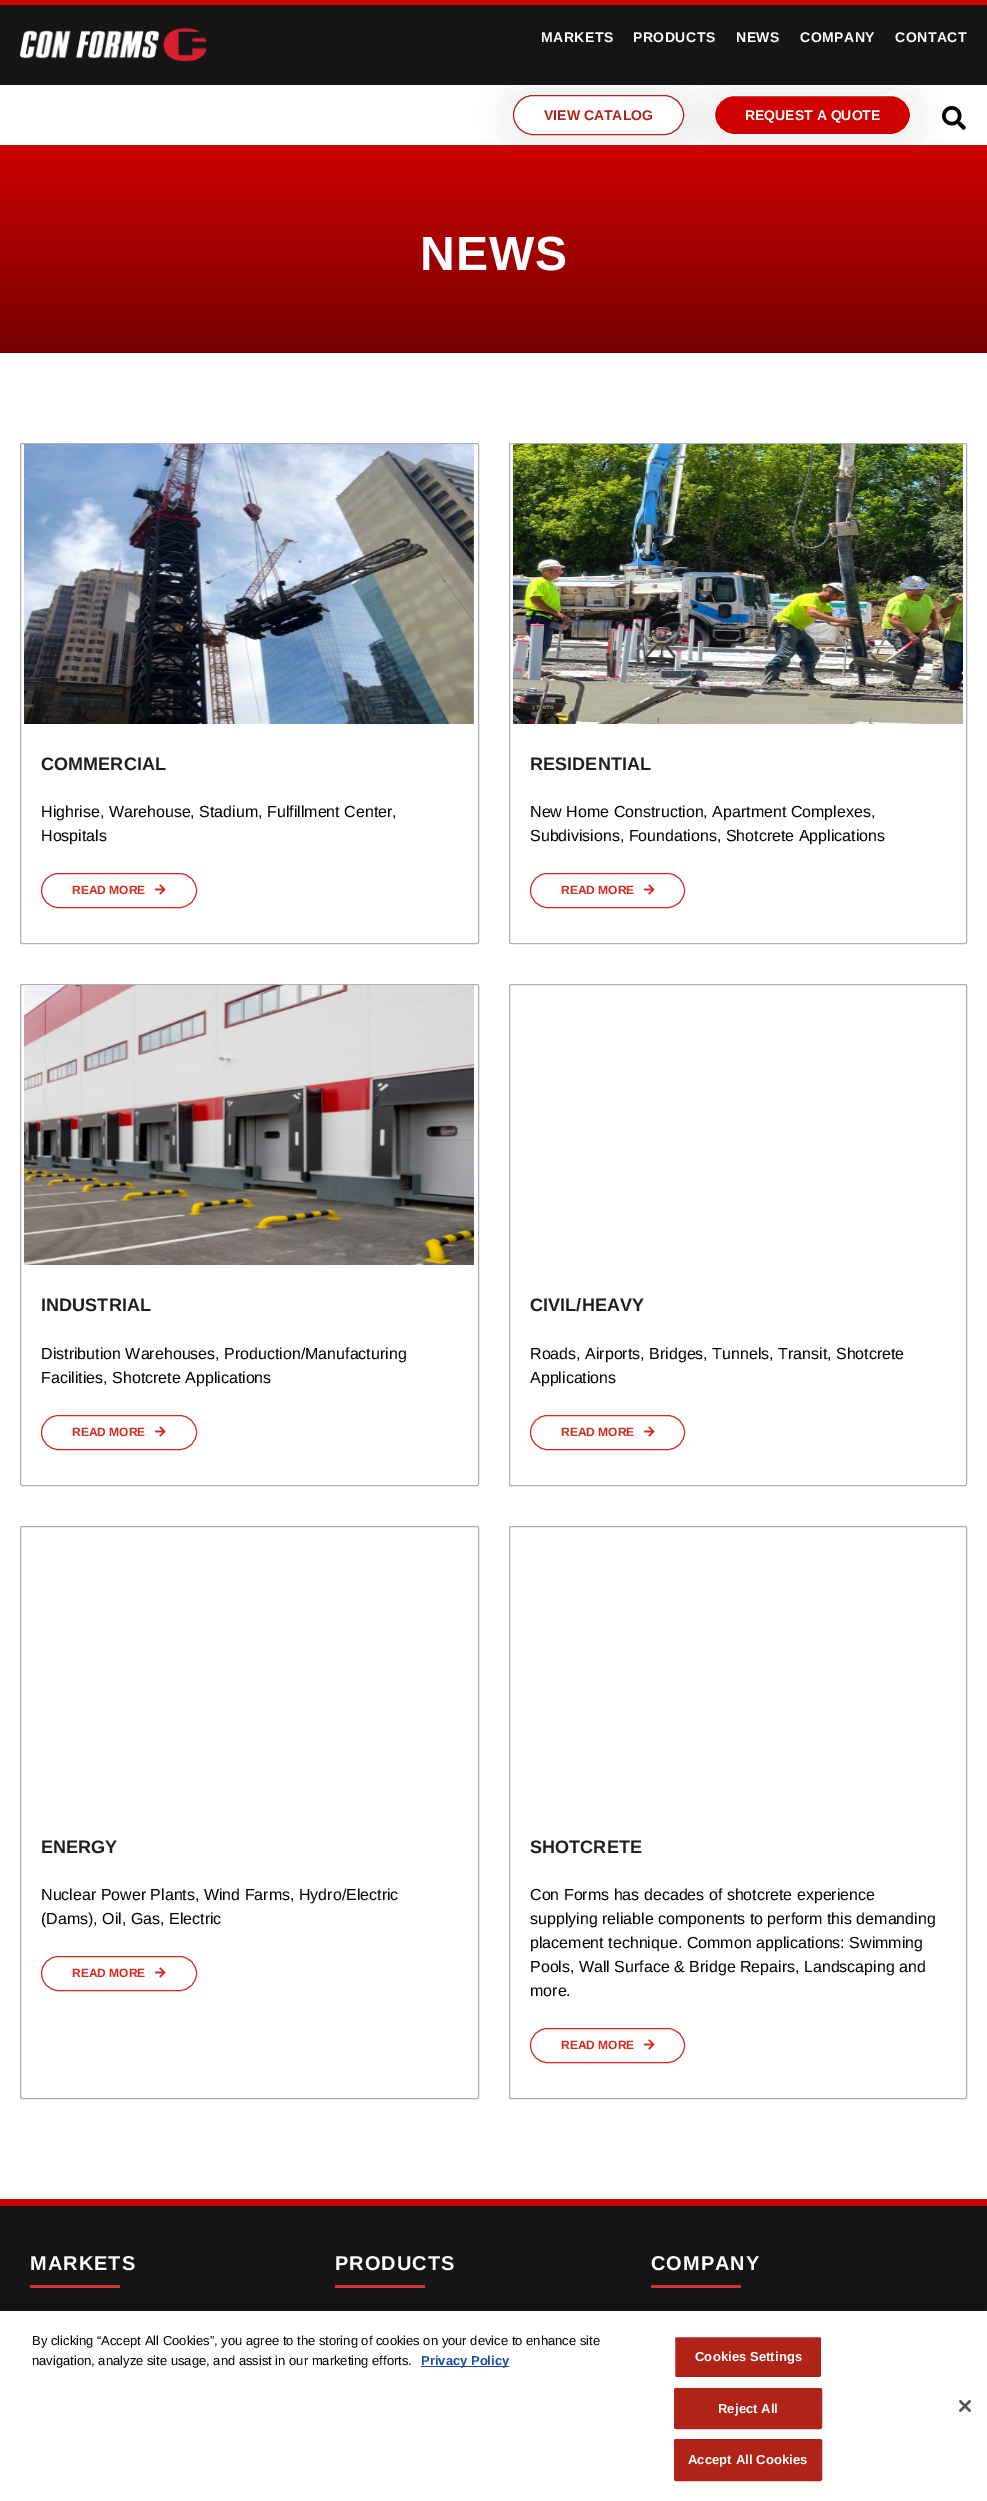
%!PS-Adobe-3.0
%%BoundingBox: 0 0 987 2501
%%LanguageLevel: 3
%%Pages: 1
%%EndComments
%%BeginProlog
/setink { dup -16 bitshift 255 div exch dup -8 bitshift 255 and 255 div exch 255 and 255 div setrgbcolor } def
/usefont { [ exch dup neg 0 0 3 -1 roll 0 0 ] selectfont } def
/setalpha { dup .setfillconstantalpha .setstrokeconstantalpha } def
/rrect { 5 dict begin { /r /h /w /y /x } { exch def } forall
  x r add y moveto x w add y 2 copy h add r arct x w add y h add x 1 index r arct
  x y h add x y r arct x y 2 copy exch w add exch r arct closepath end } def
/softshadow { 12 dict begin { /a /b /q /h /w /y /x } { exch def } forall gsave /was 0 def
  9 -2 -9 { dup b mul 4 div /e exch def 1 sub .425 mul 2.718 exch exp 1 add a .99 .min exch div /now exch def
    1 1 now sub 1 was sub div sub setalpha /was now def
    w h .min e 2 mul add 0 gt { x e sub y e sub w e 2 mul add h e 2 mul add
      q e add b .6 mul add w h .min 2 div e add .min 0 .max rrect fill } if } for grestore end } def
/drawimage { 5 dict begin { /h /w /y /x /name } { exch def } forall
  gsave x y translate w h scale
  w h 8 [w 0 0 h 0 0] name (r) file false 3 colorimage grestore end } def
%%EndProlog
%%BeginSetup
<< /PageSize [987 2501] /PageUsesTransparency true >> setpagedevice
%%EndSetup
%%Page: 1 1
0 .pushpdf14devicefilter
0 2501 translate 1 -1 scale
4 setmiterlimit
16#FFFFFF setink
0 0 987 2501 rectfill
16#CE0000 setink
0 0 987 5 rectfill
16#151515 setink
0 5 987 80 rectfill
(img1.raw) 20 28 187 34 drawimage
gsave
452 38 moveto 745 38 lineto 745 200 lineto 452 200 lineto closepath 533 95 moveto 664 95 lineto 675 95 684 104 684 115 curveto 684 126 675 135 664 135 curveto 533 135 lineto 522 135 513 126 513 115 curveto 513 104 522 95 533 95 curveto closepath eoclip newpath
16#000000 setink
498 84 201 70 35 15 0.05 softshadow
grestore
/LiberationSans-Bold 14 usefont
16#FFFFFF setink
541 42 moveto 0.5 0 (MARKETS) ashow
16#B02318 setink
513.5 95.5 170 39 19.5 rrect stroke
16#000000 setink
699 84 227 70 35 15 0.05 softshadow
16#FFFFFF setink
633 42 moveto 0.5 0 (PRODUCTS) ashow
736 42 moveto 0.5 0 (NEWS) ashow
800 42 moveto 0.5 0 (COMPANY) ashow
895 42 moveto 0.5 0 (CONTACT) ashow
16#B02318 setink
544 120 moveto (VIEW CATALOG) show
16#CE0000 setink
714.5 95.5 196 39 19.5 rrect gsave fill grestore
16#FFFFFF setink
stroke
745 120 moveto (REQUEST A QUOTE) show
(img2.raw) 942 106 24 24 drawimage
gsave 0 145 moveto 987 145 lineto 987 353 lineto 0 353 lineto closepath clip newpath
<< /ShadingType 2 /ColorSpace /DeviceRGB /Coords [494 145 494 353] /Extend [true true] /Function << /FunctionType 2 /Domain [0 1] /C0 [0.808 0 0] /C1 [0.467 0 0] /N 1 >> >> shfill grestore
/LiberationSans-Bold 48 usefont
420 270 moveto 1 0 (NEWS) ashow
16#B0B0B0 setink
20.5 443.5 458 500 1.5 rrect stroke
(img3.raw) 24 444 450 280 drawimage
/LiberationSans-Bold 18 usefont
16#1E1E1E setink
41 770 moveto 0.1 0 (COMMERCIAL) ashow
/LiberationSans-Regular 16 usefont
16#000000 setink
41 817 moveto (Highrise, Warehouse, Stadium, Fulfillment Center,) show
41 841 moveto (Hospitals) show
16#D42A1D setink
41.5 873.5 155 34 17 rrect stroke
/LiberationSans-Bold 12 usefont
72 894 moveto (READ MORE) show
(img4.raw) 155 884 11 11 drawimage
16#B0B0B0 setink
509.5 443.5 457 500 1.5 rrect stroke
(img5.raw) 513 444 450 280 drawimage
/LiberationSans-Bold 18 usefont
16#1E1E1E setink
530 770 moveto 0.1 0 (RESIDENTIAL) ashow
/LiberationSans-Regular 16 usefont
16#000000 setink
530 817 moveto (New Home Construction, Apartment Complexes,) show
530 841 moveto (Subdivisions, Foundations, Shotcrete Applications) show
16#D42A1D setink
530.5 873.5 154 34 17 rrect stroke
/LiberationSans-Bold 12 usefont
561 894 moveto (READ MORE) show
(img4.raw) 644 884 11 11 drawimage
16#B0B0B0 setink
20.5 984.5 458 501 1.5 rrect stroke
(img6.raw) 24 985 450 280 drawimage
/LiberationSans-Bold 18 usefont
16#1E1E1E setink
41 1311 moveto 0.1 0 (INDUSTRIAL) ashow
/LiberationSans-Regular 16 usefont
16#000000 setink
41 1359 moveto (Distribution Warehouses, Production/Manufacturing) show
41 1383 moveto (Facilities, Shotcrete Applications) show
16#D42A1D setink
41.5 1415.5 155 34 17 rrect stroke
/LiberationSans-Bold 12 usefont
72 1436 moveto (READ MORE) show
(img4.raw) 155 1426 11 11 drawimage
16#B0B0B0 setink
509.5 984.5 457 501 1.5 rrect stroke
/LiberationSans-Bold 18 usefont
16#1E1E1E setink
530 1311 moveto 0.1 0 (CIVIL/HEAVY) ashow
/LiberationSans-Regular 16 usefont
16#000000 setink
530 1359 moveto (Roads, Airports, Bridges, Tunnels, Transit, Shotcrete) show
530 1383 moveto (Applications) show
16#D42A1D setink
530.5 1415.5 154 34 17 rrect stroke
/LiberationSans-Bold 12 usefont
561 1436 moveto (READ MORE) show
(img4.raw) 644 1426 11 11 drawimage
16#B0B0B0 setink
20.5 1526.5 458 572 1.5 rrect stroke
/LiberationSans-Bold 18 usefont
16#1E1E1E setink
41 1853 moveto 0.1 0 (ENERGY) ashow
/LiberationSans-Regular 16 usefont
16#000000 setink
41 1900 moveto (Nuclear Power Plants, Wind Farms, Hydro/Electric) show
41 1924 moveto (\(Dams\), Oil, Gas, Electric) show
16#D42A1D setink
41.5 1956.5 155 34 17 rrect stroke
/LiberationSans-Bold 12 usefont
72 1977 moveto (READ MORE) show
(img4.raw) 155 1967 11 11 drawimage
16#B0B0B0 setink
509.5 1526.5 457 572 1.5 rrect stroke
/LiberationSans-Bold 18 usefont
16#1E1E1E setink
530 1853 moveto 0.1 0 (SHOTCRETE) ashow
/LiberationSans-Regular 16 usefont
16#000000 setink
[
    [(Con Forms has decades of shotcrete experience) 530 1900]
    [(supplying reliable components to perform this demanding) 530 1924]
    [(placement technique. Common applications: Swimming) 530 1948]
    [(Pools, Wall Surface & Bridge Repairs, Landscaping and) 530 1972]
    [(more.) 530 1996]
] { aload pop moveto show } forall
16#D42A1D setink
530.5 2028.5 154 34 17 rrect stroke
/LiberationSans-Bold 12 usefont
561 2049 moveto (READ MORE) show
(img4.raw) 644 2039 11 11 drawimage
16#CE0000 setink
0 2199 987 7 rectfill
16#151515 setink
0 2206 987 105 rectfill
/LiberationSans-Bold 20 usefont
16#FFFFFF setink
30 2270 moveto 1 0 (MARKETS) ashow
16#CC3333 setink
30 2285 90 3 rectfill
16#FFFFFF setink
335 2270 moveto 1 0 (PRODUCTS) ashow
16#CC3333 setink
335 2285 90 3 rectfill
16#FFFFFF setink
651 2270 moveto 1 0 (COMPANY) ashow
16#CC3333 setink
651 2285 90 3 rectfill
16#000000 setink
0 2311 987 190 0 9 0.2 softshadow
16#FFFFFF setink
0 2311 987 190 rectfill
/LiberationSans-Regular 13 usefont
16#000000 setink
32 2345 moveto (By clicking “Accept All Cookies”, you agree to the storing of cookies on your device to enhance site) show
32 2365 moveto (navigation, analyze site usage, and assist in our marketing efforts.) show
16#1C4BA7 setink
421 2366 88 1 rectfill
/LiberationSans-Bold 13 usefont
421 2365 moveto (Privacy Policy) show
16#B02318 setink
674.5 2336.5 147 41 1.5 rrect gsave fill grestore
16#FFFFFF setink
stroke
695 2361 moveto 0.1 0 (Cookies Settings) ashow
16#B02318 setink
674.5 2388.5 147 40 1.5 rrect gsave fill grestore
stroke
16#FFFFFF setink
718 2413 moveto 0.1 0 (Reject All) ashow
16#B02318 setink
674.5 2439.5 147 41 1.5 rrect gsave fill grestore
stroke
16#FFFFFF setink
688 2464 moveto 0.1 0 (Accept All Cookies) ashow
(img7.raw) 959 2400 12 12 drawimage
.poppdf14devicefilter showpage
%%EOF
